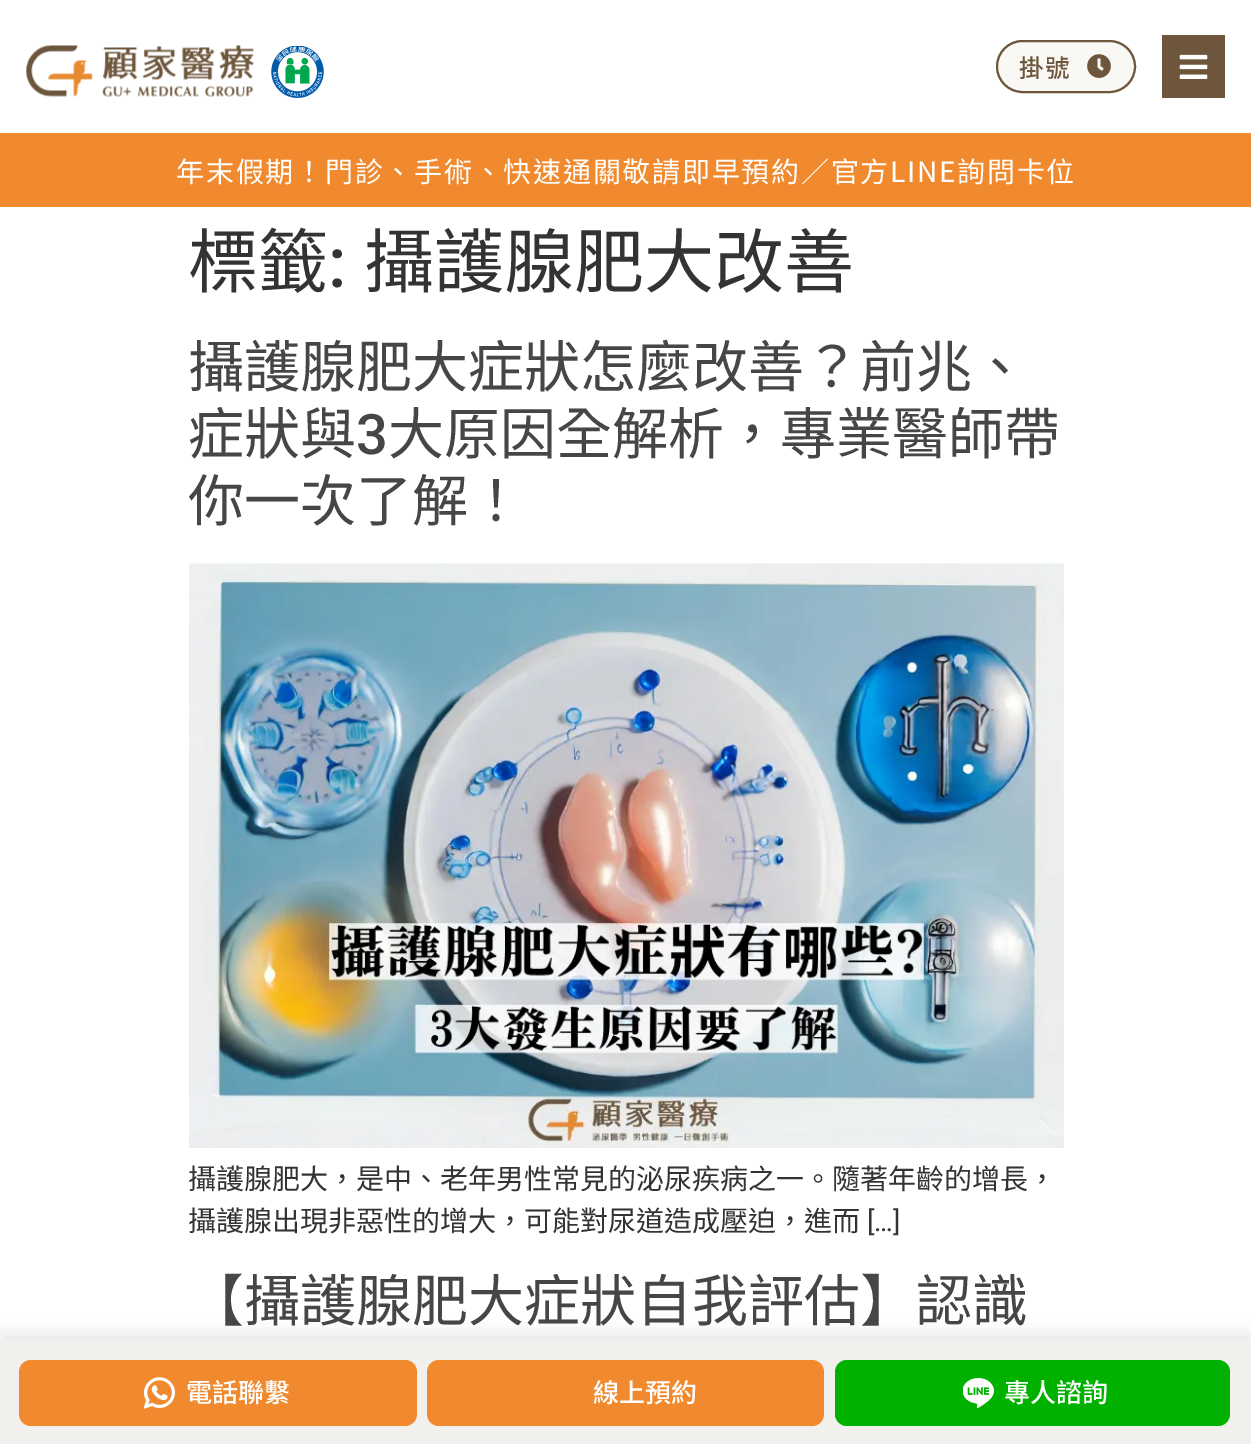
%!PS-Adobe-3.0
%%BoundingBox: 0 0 1251 1444
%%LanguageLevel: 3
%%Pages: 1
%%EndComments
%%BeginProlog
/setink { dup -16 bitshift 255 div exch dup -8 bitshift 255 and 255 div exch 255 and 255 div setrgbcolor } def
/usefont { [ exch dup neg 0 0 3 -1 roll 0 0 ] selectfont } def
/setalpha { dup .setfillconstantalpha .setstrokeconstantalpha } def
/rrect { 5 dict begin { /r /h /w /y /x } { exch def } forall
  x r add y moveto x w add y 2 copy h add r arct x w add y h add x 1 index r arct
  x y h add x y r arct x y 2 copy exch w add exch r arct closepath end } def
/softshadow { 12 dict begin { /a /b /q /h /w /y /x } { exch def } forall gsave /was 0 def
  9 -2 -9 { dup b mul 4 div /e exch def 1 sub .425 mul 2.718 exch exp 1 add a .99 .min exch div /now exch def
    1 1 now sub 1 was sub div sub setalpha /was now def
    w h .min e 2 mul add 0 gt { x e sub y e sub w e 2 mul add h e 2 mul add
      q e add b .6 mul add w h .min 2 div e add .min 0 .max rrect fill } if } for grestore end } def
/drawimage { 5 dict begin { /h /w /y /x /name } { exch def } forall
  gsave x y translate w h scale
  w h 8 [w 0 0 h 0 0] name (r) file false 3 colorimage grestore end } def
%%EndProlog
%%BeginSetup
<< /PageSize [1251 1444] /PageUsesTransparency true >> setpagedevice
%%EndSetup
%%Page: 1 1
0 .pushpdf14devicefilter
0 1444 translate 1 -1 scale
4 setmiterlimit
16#FFFFFF setink
0 0 1251 1444 rectfill
(img1.raw) 26 45 228 52 drawimage
(img2.raw) 271 46 53 52 drawimage
16#F9F8F4 setink
997 41 138 51 25.5 rrect gsave fill grestore
16#6D563C setink
2 setlinewidth
stroke
/NotoSansTC-Medium 24.5 usefont
1019 77 moveto 1.75 0 (掛號) ashow
(img3.raw) 1087 54 24 24 drawimage
1162 35 63 63 rectfill
(img4.raw) 1179 54 29 25 drawimage
16#F18A2F setink
0 133 1251 74 rectfill
/NotoSansTC-Regular 28 usefont
16#FFFFFF setink
176 182 moveto 1.75 0 (年末假期！門診、手術、快速通關敬請即早預約／官方LINE詢問卡位) ashow
/NotoSansCJKTC-Regular 70 usefont
16#333333 setink
188 287 moveto (標籤) show
/Roboto-Medium 70 usefont
328 287 moveto (:) show
/NotoSansCJKTC-Regular 70 usefont
364 287 moveto (攝護腺肥大改善) show
/NotoSansCJKTC-Regular 56 usefont
16#464646 setink
188 387 moveto (攝護腺肥大症狀怎麼改善？前兆、) show
188 454 moveto (症狀與) show
/Roboto-Medium 56 usefont
356 454 moveto (3) show
/NotoSansCJKTC-Regular 56 usefont
388 454 moveto (大原因全解析，專業醫師帶) show
188 521 moveto (你一次了解！) show
(img5.raw) 189 563 875 585 drawimage
/NotoSansCJKTC-Regular 28 usefont
16#333333 setink
188 1189 moveto (攝護腺肥大，是中、老年男性常見的泌尿疾病之一。隨著年齡的增長，) show
188 1231 moveto (攝護腺出現非惡性的增大，可能對尿道造成壓迫，進而) show
/Roboto-Regular 28 usefont
867 1231 moveto ([…]) show
/NotoSansCJKTC-Regular 56 usefont
16#464646 setink
188 1321 moveto (【攝護腺肥大症狀自我評估】認識) show
16#000000 setink
0 1334 1251 105 0 9 0.1 softshadow
16#F2F0EC setink
0 1341 1251 103 rectfill
16#F18A2F setink
19 1360 398 66 12 rrect fill
(img6.raw) 144 1377 31 32 drawimage
/NotoSansTC-Medium 26 usefont
16#FFFFFF setink
186 1402 moveto (電話聯繫) show
16#F18A2F setink
427 1360 397 66 12 rrect fill
16#FFFFFF setink
593 1402 moveto (線上預約) show
16#00B100 setink
835 1360 395 66 12 rrect fill
(img7.raw) 963 1378 31 30 drawimage
16#FFFFFF setink
1004 1402 moveto (專人諮詢) show
.poppdf14devicefilter showpage
%%EOF
